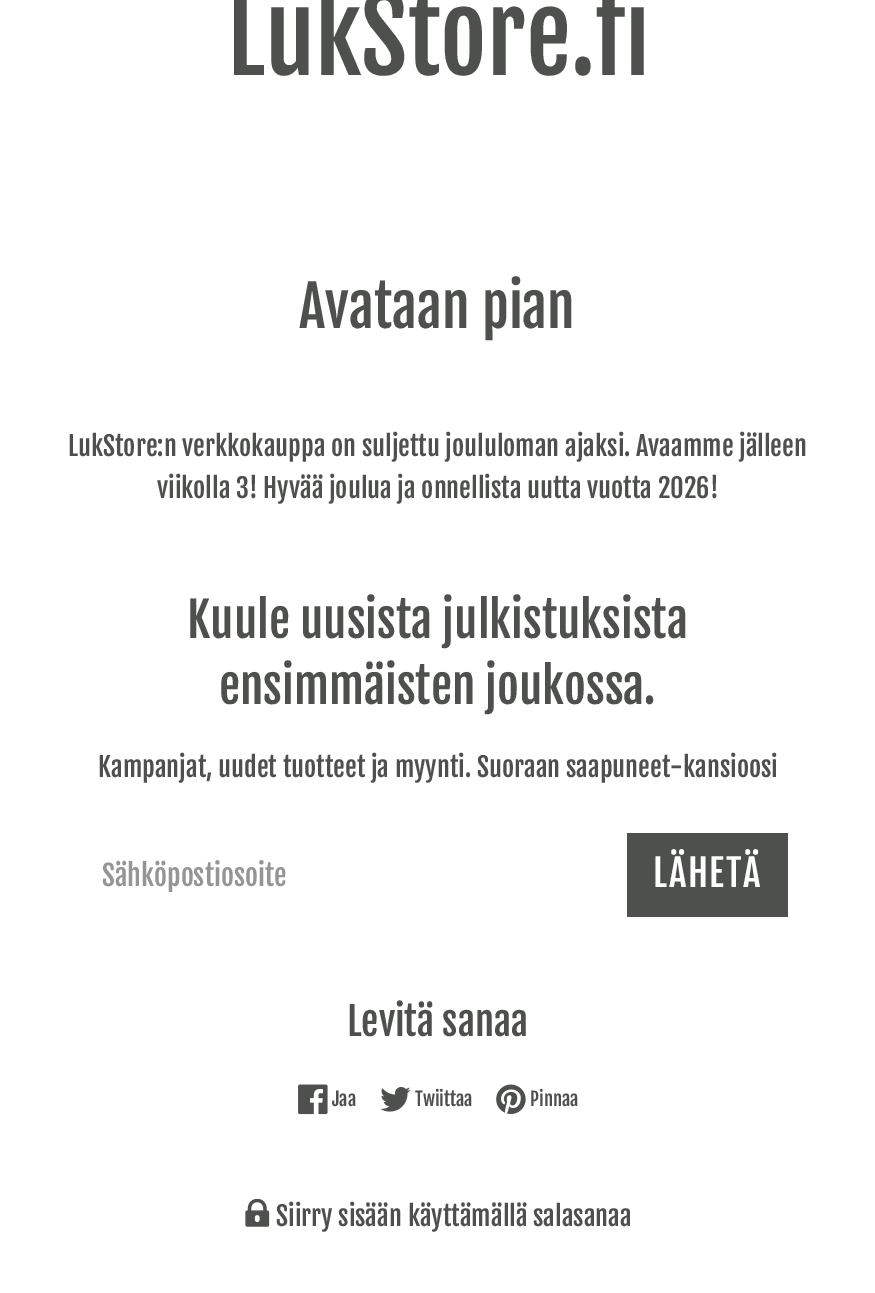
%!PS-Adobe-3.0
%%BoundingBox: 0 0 875 1293
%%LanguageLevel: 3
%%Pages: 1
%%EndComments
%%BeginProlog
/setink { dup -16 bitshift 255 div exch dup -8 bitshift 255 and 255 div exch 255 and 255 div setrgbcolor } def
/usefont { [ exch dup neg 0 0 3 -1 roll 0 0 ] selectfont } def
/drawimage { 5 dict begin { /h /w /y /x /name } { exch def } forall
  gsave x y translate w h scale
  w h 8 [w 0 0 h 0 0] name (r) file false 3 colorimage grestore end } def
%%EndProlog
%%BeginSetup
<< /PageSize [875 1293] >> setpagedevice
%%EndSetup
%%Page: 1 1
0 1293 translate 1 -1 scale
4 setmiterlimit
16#FFFFFF setink
0 0 875 1293 rectfill
/FjallaOne-Regular 101 usefont
16#4D504D setink
227 75 moveto (LukStore.fi) show
/FjallaOne-Regular 56 usefont
299 328 moveto (Avataan pian) show
/FjallaOne-Regular 26.25 usefont
68 456 moveto (LukStore:n verkkokauppa on suljettu joululoman ajaksi. Avaamme jälleen) show
157 498 moveto (viikolla 3! Hyvää joulua ja onnellista uutta vuotta 2026!) show
/FjallaOne-Regular 47.25 usefont
187 638 moveto (Kuule uusista julkistuksista) show
219 704 moveto (ensimmäisten joukossa.) show
/FjallaOne-Regular 26.25 usefont
98 777 moveto (Kampanjat, uudet tuotteet ja myynti. Suoraan saapuneet-kansioosi) show
/FjallaOne-Regular 28 usefont
16#949694 setink
102 886 moveto (Sähköpostiosoite) show
16#4D504D setink
627 833 161 84 rectfill
/FjallaOne-Regular 37 usefont
16#FFFFFF setink
653 887 moveto 1.75 0 (LÄHETÄ) ashow
/FjallaOne-Regular 38.5 usefont
16#4D504D setink
347 1036 moveto (Levitä sanaa) show
(img1.raw) 298 1084 30 31 drawimage
/FjallaOne-Regular 18.5 usefont
332 1106 moveto (Jaa) show
(img2.raw) 380 1087 31 25 drawimage
415 1106 moveto (Twiittaa) show
(img3.raw) 496 1084 30 30 drawimage
530 1106 moveto (Pinnaa) show
(img4.raw) 245 1199 25 28 drawimage
/FjallaOne-Regular 26.25 usefont
276 1226 moveto (Siirry sisään käyttämällä salasanaa) show
showpage
%%EOF
